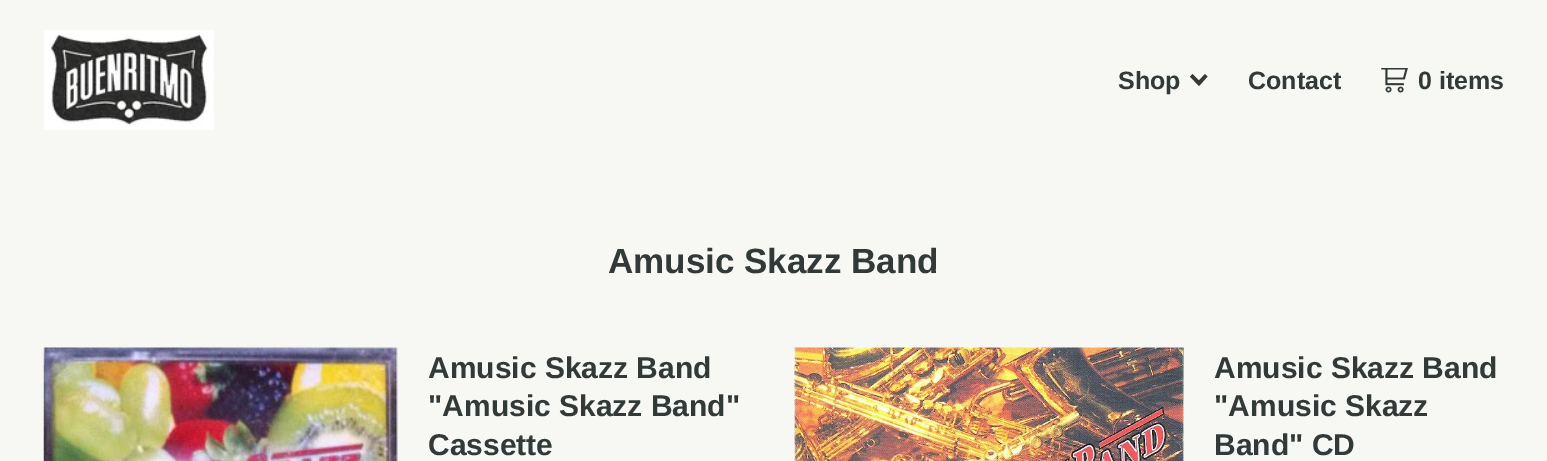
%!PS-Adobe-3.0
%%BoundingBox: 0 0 1547 461
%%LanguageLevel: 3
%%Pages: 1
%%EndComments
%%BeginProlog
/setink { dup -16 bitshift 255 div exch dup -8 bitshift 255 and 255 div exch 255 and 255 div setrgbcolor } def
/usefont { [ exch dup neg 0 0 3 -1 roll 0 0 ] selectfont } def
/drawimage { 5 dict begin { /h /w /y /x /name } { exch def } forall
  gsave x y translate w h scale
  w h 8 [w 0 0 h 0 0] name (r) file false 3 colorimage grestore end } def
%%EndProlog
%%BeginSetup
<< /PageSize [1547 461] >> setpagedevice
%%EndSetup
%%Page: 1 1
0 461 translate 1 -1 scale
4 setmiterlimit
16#F7F7F3 setink
0 0 1547 461 rectfill
(img1.raw) 44 30 170 100 drawimage
/LiberationSans-Bold 25 usefont
16#323A39 setink
1118 89 moveto (Shop) show
1207.5 76.5 moveto 1205 74 lineto 1199 80.5 lineto 1192.5 74 lineto 1190 76.5 lineto 1199 86 lineto closepath fill
1248 89 moveto (Contact) show
(img2.raw) 1381 68 27 25 drawimage
1418 89 moveto (0 items) show
/LiberationSans-Bold 35 usefont
608 273 moveto (Amusic Skazz Band) show
(img3.raw) 43 347 355 114 drawimage
/LiberationSans-Bold 30 usefont
[
    [(Amusic Skazz Band) 428 378]
    [("Amusic Skazz Band") 428 416]
    [(Cassette) 428 455]
] { aload pop moveto show } forall
(img4.raw) 793 347 391 114 drawimage
[
    [(Amusic Skazz Band) 1214 378]
    [("Amusic Skazz) 1214 416]
    [(Band" CD) 1214 455]
] { aload pop moveto show } forall
showpage
%%EOF
